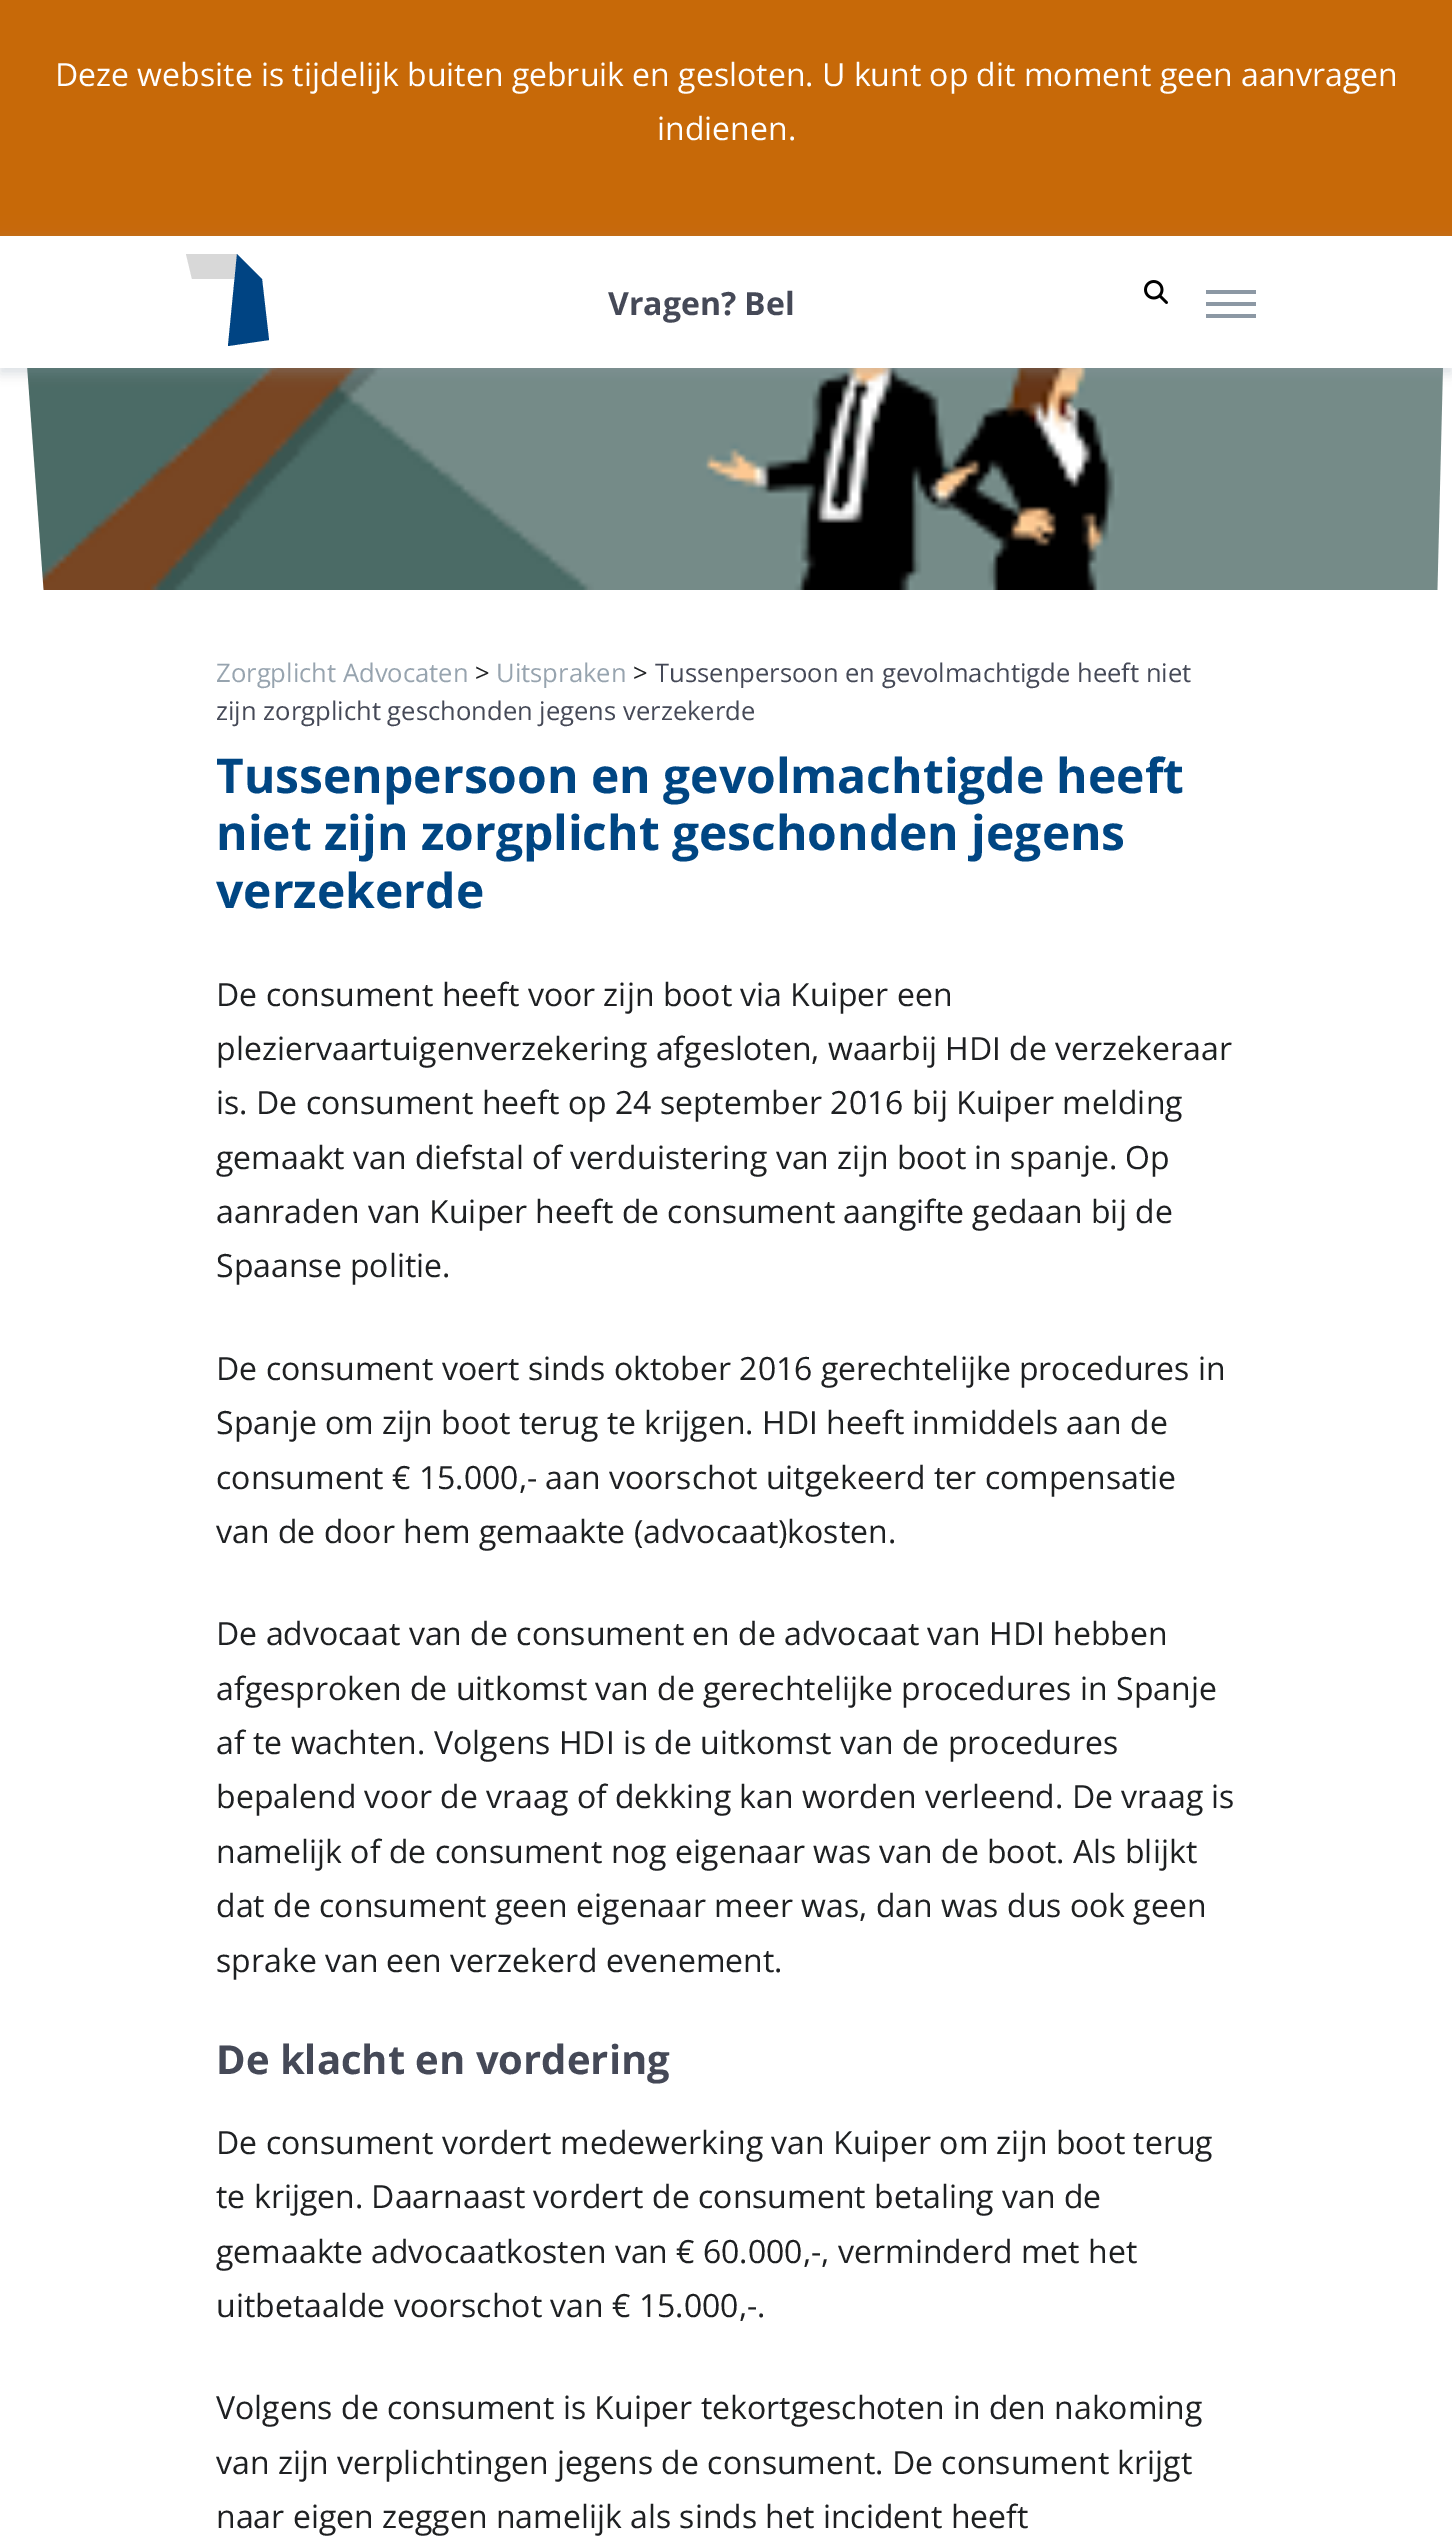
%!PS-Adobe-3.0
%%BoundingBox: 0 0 1452 2544
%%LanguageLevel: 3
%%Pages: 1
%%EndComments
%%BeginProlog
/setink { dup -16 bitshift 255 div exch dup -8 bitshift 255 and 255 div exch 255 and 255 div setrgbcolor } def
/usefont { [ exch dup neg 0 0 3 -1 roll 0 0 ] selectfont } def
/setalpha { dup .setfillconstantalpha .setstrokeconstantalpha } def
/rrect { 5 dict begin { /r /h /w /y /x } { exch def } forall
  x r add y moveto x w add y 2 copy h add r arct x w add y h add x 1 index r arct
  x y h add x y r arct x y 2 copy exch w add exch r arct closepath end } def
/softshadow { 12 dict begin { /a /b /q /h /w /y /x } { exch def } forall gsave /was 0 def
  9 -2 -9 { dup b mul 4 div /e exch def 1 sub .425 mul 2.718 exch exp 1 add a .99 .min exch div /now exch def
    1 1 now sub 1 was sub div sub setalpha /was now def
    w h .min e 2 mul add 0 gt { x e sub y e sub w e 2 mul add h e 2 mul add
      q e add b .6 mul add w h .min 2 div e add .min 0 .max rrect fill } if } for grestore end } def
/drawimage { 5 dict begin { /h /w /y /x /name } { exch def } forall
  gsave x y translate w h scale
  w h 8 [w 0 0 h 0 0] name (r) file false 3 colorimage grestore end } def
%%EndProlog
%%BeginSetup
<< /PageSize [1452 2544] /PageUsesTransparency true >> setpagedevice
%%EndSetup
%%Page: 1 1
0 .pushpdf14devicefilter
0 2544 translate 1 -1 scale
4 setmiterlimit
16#FFFFFF setink
0 0 1452 2544 rectfill
16#C76908 setink
0 0 1452 236 rectfill
/OpenSans-Regular 32 usefont
16#FFFFFF setink
55 86 moveto (Deze website is tijdelijk buiten gebruik en gesloten. U kunt op dit moment geen aanvragen) show
657 140 moveto (indienen.) show
(img2.raw) 27 368 1416 222 drawimage
16#97A4AF setink
0 238 1452 132 0 10 0.1 softshadow
16#FFFFFF setink
0 236 1452 132 rectfill
gsave
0 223 moveto 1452 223 lineto 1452 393 lineto 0 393 lineto closepath 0 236 moveto 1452 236 lineto 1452 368 lineto 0 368 lineto closepath eoclip newpath
16#8C98A4 setink
0 242 1452 132 0 6 0.25 softshadow
grestore
16#D8D8D8 setink
186 254 moveto 192 279 lineto 234 279 lineto 237 254 lineto closepath eofill
16#004483 setink
228 346 moveto 269 340 lineto 262 279 lineto 237 254 lineto closepath eofill
/OpenSans-Bold 32 usefont
16#454957 setink
608 315 moveto (Vragen? Bel) show
(img1.raw) 1144 280 24 24 drawimage
[
    [1206 290 50 4 16#8C98A4]
    [1206 302 50 4 16#8C98A4]
    [1206 314 50 4 16#8C98A4]
] { aload pop setink rectfill } forall
/OpenSans-Regular 25.6 usefont
16#97A4AF setink
216 682 moveto (Zorgplicht Advocaten) show
16#1E2022 setink
475 682 moveto (>) show
16#97A4AF setink
496 682 moveto (Uitspraken) show
16#1E2022 setink
633 682 moveto (>) show
16#454957 setink
655 682 moveto (Tussenpersoon en gevolmachtigde heeft niet) show
216 720 moveto (zijn zorgplicht geschonden jegens verzekerde) show
/OpenSans-Bold 48 usefont
16#004683 setink
[
    [(Tussenpersoon en gevolmachtigde heeft) 216 793]
    [(niet zijn zorgplicht geschonden jegens) 216 850]
    [(verzekerde) 216 908]
] { aload pop moveto show } forall
/OpenSans-Regular 32 usefont
16#1E2022 setink
[
    [(De consument heeft voor zijn boot via Kuiper een) 216 1006]
    [(pleziervaartuigenverzekering afgesloten, waarbij HDI de verzekeraar) 216 1060]
    [(is. De consument heeft op 24 september 2016 bij Kuiper melding) 216 1114]
    [(gemaakt van diefstal of verduistering van zijn boot in spanje. Op) 216 1169]
    [(aanraden van Kuiper heeft de consument aangifte gedaan bij de) 216 1223]
    [(Spaanse politie.) 216 1277]
    [(De consument voert sinds oktober 2016 gerechtelijke procedures in) 216 1380]
    [(Spanje om zijn boot terug te krijgen. HDI heeft inmiddels aan de) 216 1434]
    [(consument € 15.000,- aan voorschot uitgekeerd ter compensatie) 216 1489]
    [(van de door hem gemaakte \(advocaat\)kosten.) 216 1543]
    [(De advocaat van de consument en de advocaat van HDI hebben) 216 1645]
    [(afgesproken de uitkomst van de gerechtelijke procedures in Spanje) 216 1700]
    [(af te wachten. Volgens HDI is de uitkomst van de procedures) 216 1754]
    [(bepalend voor de vraag of dekking kan worden verleend. De vraag is) 216 1808]
    [(namelijk of de consument nog eigenaar was van de boot. Als blijkt) 216 1863]
    [(dat de consument geen eigenaar meer was, dan was dus ook geen) 216 1917]
    [(sprake van een verzekerd evenement.) 216 1972]
] { aload pop moveto show } forall
/OpenSans-Bold 40 usefont
16#454957 setink
216 2074 moveto (De klacht en vordering) show
/OpenSans-Regular 32 usefont
16#1E2022 setink
[
    [(De consument vordert medewerking van Kuiper om zijn boot terug) 216 2154]
    [(te krijgen. Daarnaast vordert de consument betaling van de) 216 2208]
    [(gemaakte advocaatkosten van € 60.000,-, verminderd met het) 216 2263]
    [(uitbetaalde voorschot van € 15.000,-.) 216 2317]
    [(Volgens de consument is Kuiper tekortgeschoten in den nakoming) 216 2419]
    [(van zijn verplichtingen jegens de consument. De consument krijgt) 216 2474]
    [(naar eigen zeggen namelijk als sinds het incident heeft) 216 2528]
] { aload pop moveto show } forall
.poppdf14devicefilter showpage
%%EOF
